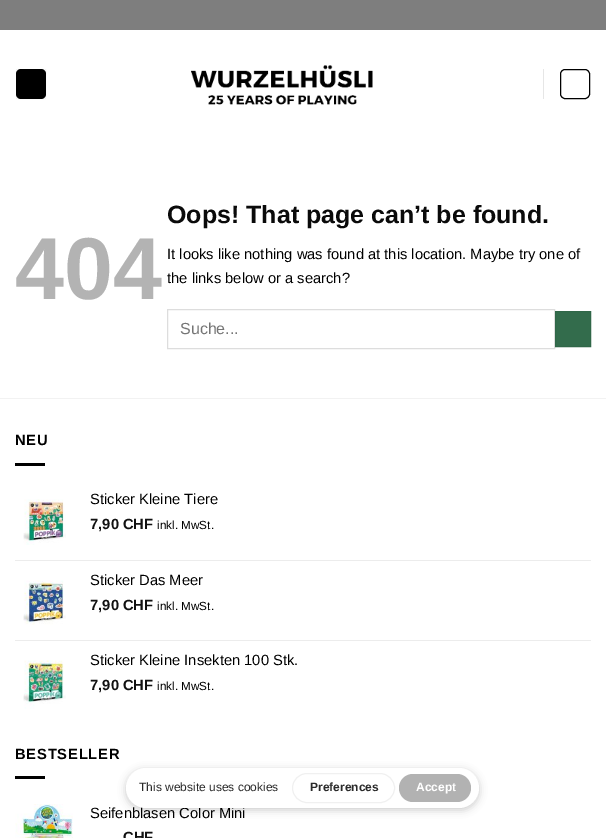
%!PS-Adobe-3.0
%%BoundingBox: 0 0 606 838
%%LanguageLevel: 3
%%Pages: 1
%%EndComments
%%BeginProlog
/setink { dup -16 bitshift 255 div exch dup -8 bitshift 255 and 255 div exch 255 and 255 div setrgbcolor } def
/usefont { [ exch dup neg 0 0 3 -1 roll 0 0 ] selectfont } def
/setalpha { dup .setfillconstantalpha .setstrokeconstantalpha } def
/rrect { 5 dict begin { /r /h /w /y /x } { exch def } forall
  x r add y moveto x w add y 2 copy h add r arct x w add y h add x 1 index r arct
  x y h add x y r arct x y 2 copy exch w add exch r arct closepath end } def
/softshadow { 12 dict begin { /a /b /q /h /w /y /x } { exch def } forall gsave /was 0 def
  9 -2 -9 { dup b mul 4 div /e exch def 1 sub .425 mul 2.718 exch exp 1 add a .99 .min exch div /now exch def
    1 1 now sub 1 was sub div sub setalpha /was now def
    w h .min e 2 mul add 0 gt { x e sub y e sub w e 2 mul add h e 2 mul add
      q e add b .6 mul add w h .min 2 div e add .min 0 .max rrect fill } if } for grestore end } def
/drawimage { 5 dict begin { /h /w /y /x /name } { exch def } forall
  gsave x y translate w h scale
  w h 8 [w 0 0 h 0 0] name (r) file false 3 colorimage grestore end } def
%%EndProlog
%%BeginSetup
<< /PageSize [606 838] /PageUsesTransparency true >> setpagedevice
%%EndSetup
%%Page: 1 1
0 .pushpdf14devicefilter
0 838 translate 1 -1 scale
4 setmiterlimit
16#FFFFFF setink
0 0 606 838 rectfill
16#7E7E7E setink
0 0 606 30 rectfill
16#000000 setink
16 69 30 30 5 rrect fill
0.05 setalpha
16.5 69.5 29 29 rectstroke
1 setalpha
(img1.raw) 191 65 182 40 drawimage
16#E6E6E6 setink
543 69 1 30 rectfill
16#000000 setink
560.5 69.5 29 29 4.5 rrect stroke
/LiberationSans-Bold 88 usefont
16#B3B3B3 setink
15 299 moveto (404) show
/LiberationSans-Bold 25 usefont
16#0A0A0A setink
167 223 moveto (Oops! That page can’t be found.) show
/LiberationSans-Regular 14.75 usefont
16#000000 setink
167 259 moveto (It looks like nothing was found at this location. Maybe try one of) show
167 283 moveto (the links below or a search?) show
16#DDDDDD setink
167.5 309.5 387 39 rectstroke
/LiberationSans-Regular 16 usefont
16#757575 setink
180 334 moveto (Suche...) show
16#336C4C setink
555.5 311.5 moveto 590.5 311.5 lineto 590.5 346.5 lineto 555.5 346.5 lineto closepath gsave fill grestore
16#306748 setink
stroke
16#F2F2F2 setink
0 398 606 1 rectfill
/LiberationSans-Bold 14.75 usefont
16#000000 setink
15 445 moveto 0.75 0 (NEU) ashow
15 463 30 3 rectfill
(img2.raw) 23 499 43 46 drawimage
/LiberationSans-Regular 14.75 usefont
90 504 moveto (Sticker Kleine Tiere) show
/LiberationSans-Bold 14.75 usefont
16#111111 setink
90 529 moveto (7,90 CHF) show
/LiberationSans-Regular 11.75 usefont
16#000000 setink
157 529 moveto (inkl. MwSt.) show
16#ECECEC setink
15 560 576 1 rectfill
(img3.raw) 23 580 43 45 drawimage
/LiberationSans-Regular 14.75 usefont
16#000000 setink
90 585 moveto (Sticker Das Meer) show
/LiberationSans-Bold 14.75 usefont
16#111111 setink
90 610 moveto (7,90 CHF) show
/LiberationSans-Regular 11.75 usefont
16#000000 setink
157 610 moveto (inkl. MwSt.) show
16#ECECEC setink
15 640 576 1 rectfill
(img4.raw) 23 660 43 49 drawimage
/LiberationSans-Regular 14.75 usefont
16#000000 setink
90 665 moveto (Sticker Kleine Insekten 100 Stk.) show
/LiberationSans-Bold 14.75 usefont
16#111111 setink
90 690 moveto (7,90 CHF) show
/LiberationSans-Regular 11.75 usefont
16#000000 setink
157 690 moveto (inkl. MwSt.) show
/LiberationSans-Bold 14.75 usefont
15 759 moveto 0.75 0 (BESTSELLER) ashow
15 776 30 3 rectfill
(img5.raw) 15 804 58 34 drawimage
/LiberationSans-Regular 14.75 usefont
90 818 moveto (Seifenblasen Color Mini) show
/LiberationSans-Bold 14.75 usefont
16#111111 setink
123 842 moveto (CHF) show
16#000000 setink
126 770 353 40 20 4 0.2 softshadow
16#FFFFFF setink
126 768 353 40 20 rrect fill
/LiberationSans-Regular 12 usefont
16#2A2A2A setink
139 791 moveto (This website uses cookies) show
16#F0F0F0 setink
292.5 773.5 102 29 14.5 rrect stroke
/LiberationSans-Bold 12 usefont
16#2A2A2A setink
310 791 moveto (Preferences) show
16#B2B2B2 setink
399 774 72 28 14 rrect fill
16#FFFFFF setink
416 791 moveto (Accept) show
.poppdf14devicefilter showpage
%%EOF
